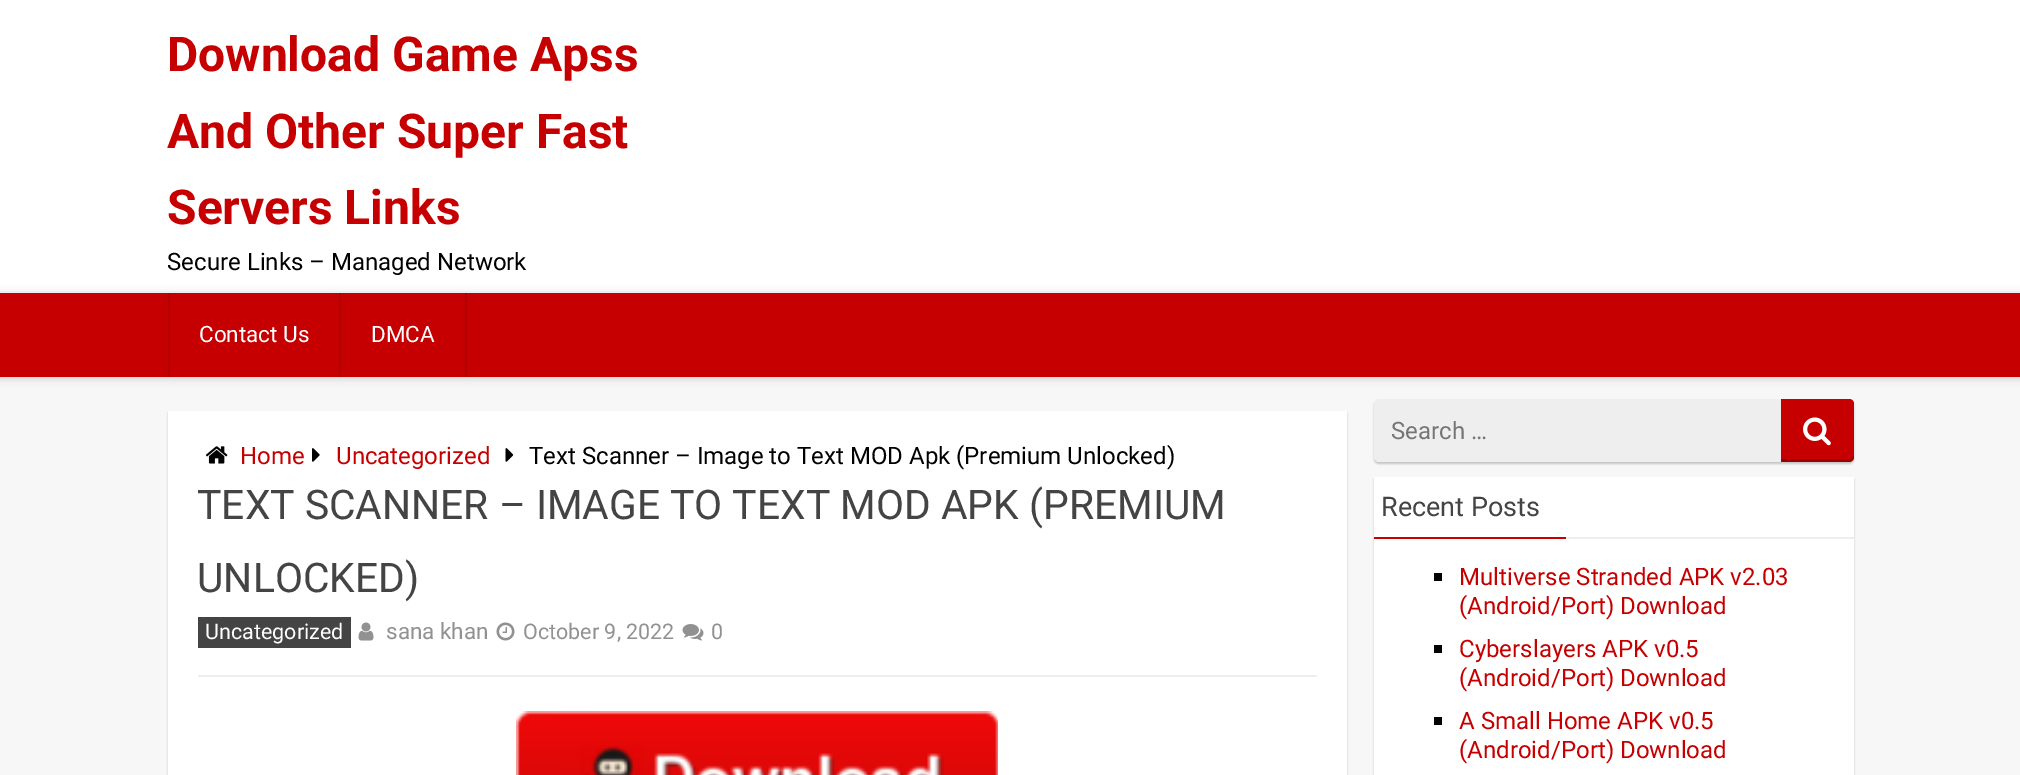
%!PS-Adobe-3.0
%%BoundingBox: 0 0 2020 775
%%LanguageLevel: 3
%%Pages: 1
%%EndComments
%%BeginProlog
/setink { dup -16 bitshift 255 div exch dup -8 bitshift 255 and 255 div exch 255 and 255 div setrgbcolor } def
/usefont { [ exch dup neg 0 0 3 -1 roll 0 0 ] selectfont } def
/setalpha { dup .setfillconstantalpha .setstrokeconstantalpha } def
/rrect { 5 dict begin { /r /h /w /y /x } { exch def } forall
  x r add y moveto x w add y 2 copy h add r arct x w add y h add x 1 index r arct
  x y h add x y r arct x y 2 copy exch w add exch r arct closepath end } def
/softshadow { 12 dict begin { /a /b /q /h /w /y /x } { exch def } forall gsave /was 0 def
  9 -2 -9 { dup b mul 4 div /e exch def 1 sub .425 mul 2.718 exch exp 1 add a .99 .min exch div /now exch def
    1 1 now sub 1 was sub div sub setalpha /was now def
    w h .min e 2 mul add 0 gt { x e sub y e sub w e 2 mul add h e 2 mul add
      q e add b .6 mul add w h .min 2 div e add .min 0 .max rrect fill } if } for grestore end } def
/drawimage { 5 dict begin { /h /w /y /x /name } { exch def } forall
  gsave x y translate w h scale
  w h 8 [w 0 0 h 0 0] name (r) file false 3 colorimage grestore end } def
%%EndProlog
%%BeginSetup
<< /PageSize [2020 775] /PageUsesTransparency true >> setpagedevice
%%EndSetup
%%Page: 1 1
0 .pushpdf14devicefilter
0 775 translate 1 -1 scale
4 setmiterlimit
16#F7F7F7 setink
0 0 2020 775 rectfill
16#FFFFFF setink
0 0 2020 293 rectfill
/Roboto-Bold 48 usefont
16#C60000 setink
[
    [(Download Game Apss) 167 71]
    [(And Other Super Fast) 167 148]
    [(Servers Links) 167 224]
] { aload pop moveto show } forall
/Roboto-Regular 24 usefont
16#000000 setink
167 270 moveto (Secure Links – Managed Network) show
0 294 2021 84 0 4 0.2 softshadow
[
    [0 293 2020 84 16#C60000]
    [339 293 2 84 16#B20000]
    [168 293 2 84 16#B20000]
] { aload pop setink rectfill } forall
/Roboto-Regular 22.5 usefont
16#FFFFFF setink
199 342 moveto (Contact Us) show
16#B20000 setink
465 293 2 84 rectfill
16#FFFFFF setink
371 342 moveto (DMCA) show
16#C2C4C4 setink
168 413 1179 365 0 1 1 softshadow
16#FFFFFF setink
168 411 1179 364 rectfill
(img1.raw) 205 446 23 18 drawimage
/Roboto-Regular 24 usefont
16#C60000 setink
240 464 moveto (Home) show
(img2.raw) 312 448 8 14 drawimage
336 464 moveto (Uncategorized) show
(img3.raw) 505 448 9 14 drawimage
16#000000 setink
529 464 moveto (Text Scanner – Image to Text MOD Apk \(Premium Unlocked\)) show
16#EEEEEE setink
198 675 1119 2 rectfill
/Roboto-Regular 40.8 usefont
16#444444 setink
[
    [(TEXT SCANNER – IMAGE TO TEXT MOD APK) 197 519]
    [(\(PREMIUM) 1029 519]
    [(UNLOCKED\)) 197 592]
] { aload pop moveto show } forall
198 617 153 31 rectfill
/Roboto-Regular 21.5 usefont
16#FFFFFF setink
205 639 moveto (Uncategorized) show
(img4.raw) 358 622 16 19 drawimage
/Roboto-Regular 22.5 usefont
16#919191 setink
386 639 moveto (sana khan) show
(img5.raw) 496 622 19 19 drawimage
/Roboto-Regular 21.5 usefont
523 639 moveto (October 9, 2022) show
(img6.raw) 682 624 22 17 drawimage
711 639 moveto (0) show
(img7.raw) 516 711 482 64 drawimage
16#C2C4C4 setink
1374 401 480 63 5 1 1 softshadow
16#EEEEEE setink
1374 399 480 63 5 rrect fill
/Roboto-Regular 24 usefont
16#757575 setink
1391 439 moveto (Search …) show
16#C60000 setink
1781 399 moveto 1849 399 lineto 1852 399 1854 401 1854 404 curveto 1854 457 lineto 1854 460 1852 462 1849 462 curveto 1781 462 lineto closepath fill
0.2 setalpha
16#000000 setink
1781 462 moveto 1849 462 lineto 1852 462 1854 460 1854 457 curveto 1854 454 lineto 1854 457 1852 459 1850 459 curveto 1781 459 lineto closepath fill
1 setalpha
(img8.raw) 1803 417 28 29 drawimage
16#C2C4C4 setink
1374 479 480 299 0 1 1 softshadow
16#FFFFFF setink
1374 477 480 298 rectfill
16#EEEEEE setink
1566 537 288 2 rectfill
/Roboto-Regular 27 usefont
16#444444 setink
1381 516 moveto (Recent Posts) show
16#C60000 setink
1374 537 192 2 rectfill
16#000000 setink
1434 573 8 8 rectfill
/Roboto-Regular 24 usefont
16#C60000 setink
1459 585 moveto (Multiverse Stranded APK v2.03) show
1459 614 moveto (\(Android/Port\) Download) show
16#000000 setink
1434 645 8 8 rectfill
16#C60000 setink
1459 657 moveto (Cyberslayers APK v0.5) show
1459 686 moveto (\(Android/Port\) Download) show
16#000000 setink
1434 717 8 8 rectfill
16#C60000 setink
1459 729 moveto (A Small Home APK v0.5) show
1459 758 moveto (\(Android/Port\) Download) show
.poppdf14devicefilter showpage
%%EOF
